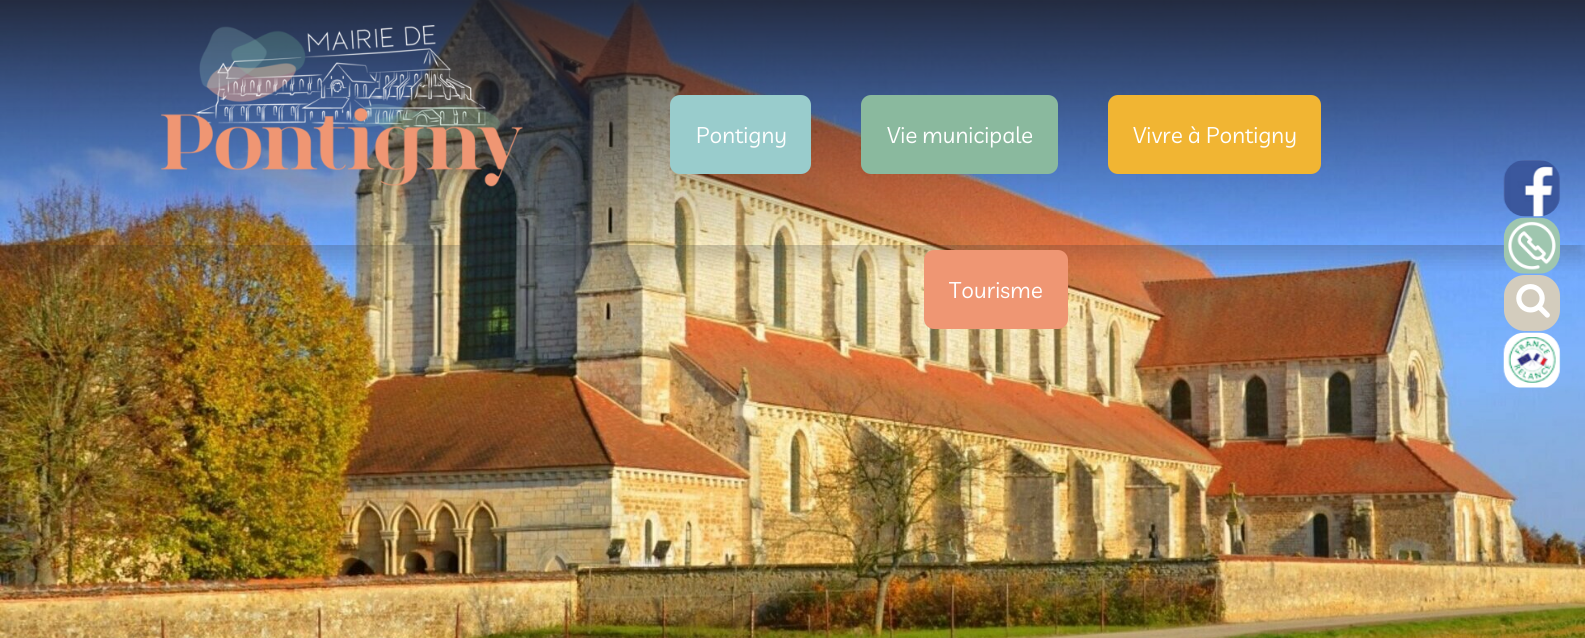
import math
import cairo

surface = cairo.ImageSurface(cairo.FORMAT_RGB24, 1585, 638)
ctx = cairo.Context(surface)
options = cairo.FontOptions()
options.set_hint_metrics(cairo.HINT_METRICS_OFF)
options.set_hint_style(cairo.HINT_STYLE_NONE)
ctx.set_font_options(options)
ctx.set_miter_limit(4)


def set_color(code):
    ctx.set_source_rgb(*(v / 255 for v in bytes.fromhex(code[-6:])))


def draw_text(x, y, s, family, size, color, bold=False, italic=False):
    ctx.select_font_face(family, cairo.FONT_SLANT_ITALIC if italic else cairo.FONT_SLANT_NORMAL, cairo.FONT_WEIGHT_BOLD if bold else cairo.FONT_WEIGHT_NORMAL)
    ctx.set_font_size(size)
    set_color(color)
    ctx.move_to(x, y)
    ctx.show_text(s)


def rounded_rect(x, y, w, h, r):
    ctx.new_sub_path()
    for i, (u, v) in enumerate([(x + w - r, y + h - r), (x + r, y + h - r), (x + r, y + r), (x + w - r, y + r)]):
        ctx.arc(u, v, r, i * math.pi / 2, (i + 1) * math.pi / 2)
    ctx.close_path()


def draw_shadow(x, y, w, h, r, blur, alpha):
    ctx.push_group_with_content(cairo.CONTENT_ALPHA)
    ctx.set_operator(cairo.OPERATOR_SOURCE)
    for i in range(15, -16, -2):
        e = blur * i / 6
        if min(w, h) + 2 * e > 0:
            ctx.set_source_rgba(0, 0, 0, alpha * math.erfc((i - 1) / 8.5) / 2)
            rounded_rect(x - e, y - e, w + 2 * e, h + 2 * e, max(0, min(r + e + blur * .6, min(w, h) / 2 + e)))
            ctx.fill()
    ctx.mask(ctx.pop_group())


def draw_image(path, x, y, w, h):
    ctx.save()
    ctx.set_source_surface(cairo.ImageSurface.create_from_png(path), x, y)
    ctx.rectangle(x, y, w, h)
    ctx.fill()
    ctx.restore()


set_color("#ffffff")
ctx.paint()
draw_image("assets/img1.png", 0, 0, 1585, 638)
ctx.save()
ctx.rectangle(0, 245, 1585, 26)
ctx.clip()
set_color("#323232")
draw_shadow(0, 13, 1585, 245, 0, 9.5, 0.25)
ctx.restore()
draw_image("assets/img2.png", 161, 25, 362, 162)
set_color("#99cccc")
rounded_rect(670, 95, 141, 79, 10)
ctx.fill()
draw_text(696, 143, "Pontigny", "Livvic", 22.5, "#ffffff")
set_color("#8ab99e")
rounded_rect(861, 95, 197, 79, 10)
ctx.fill()
draw_text(887, 143, "Vie municipale", "Livvic", 22.5, "#ffffff")
set_color("#f1b533")
rounded_rect(1108, 95, 213, 79, 10)
ctx.fill()
draw_text(1133, 143, "Vivre à Pontigny", "Livvic", 22.5, "#ffffff")
set_color("#ef9673")
rounded_rect(924, 250, 144, 79, 10)
ctx.fill()
draw_text(949, 298, "Tourisme", "Livvic", 22.5, "#ffffff")
draw_image("assets/img3.png", 1503, 160, 57, 57)
draw_image("assets/img4.png", 1503, 217, 57, 57)
set_color("#d3ccbd")
rounded_rect(1504, 275, 56, 56, 21)
ctx.fill()
draw_image("assets/img5.png", 1516, 284, 34, 34)
draw_image("assets/img6.png", 1503, 332, 58, 56)
surface.write_to_png("output.png")
